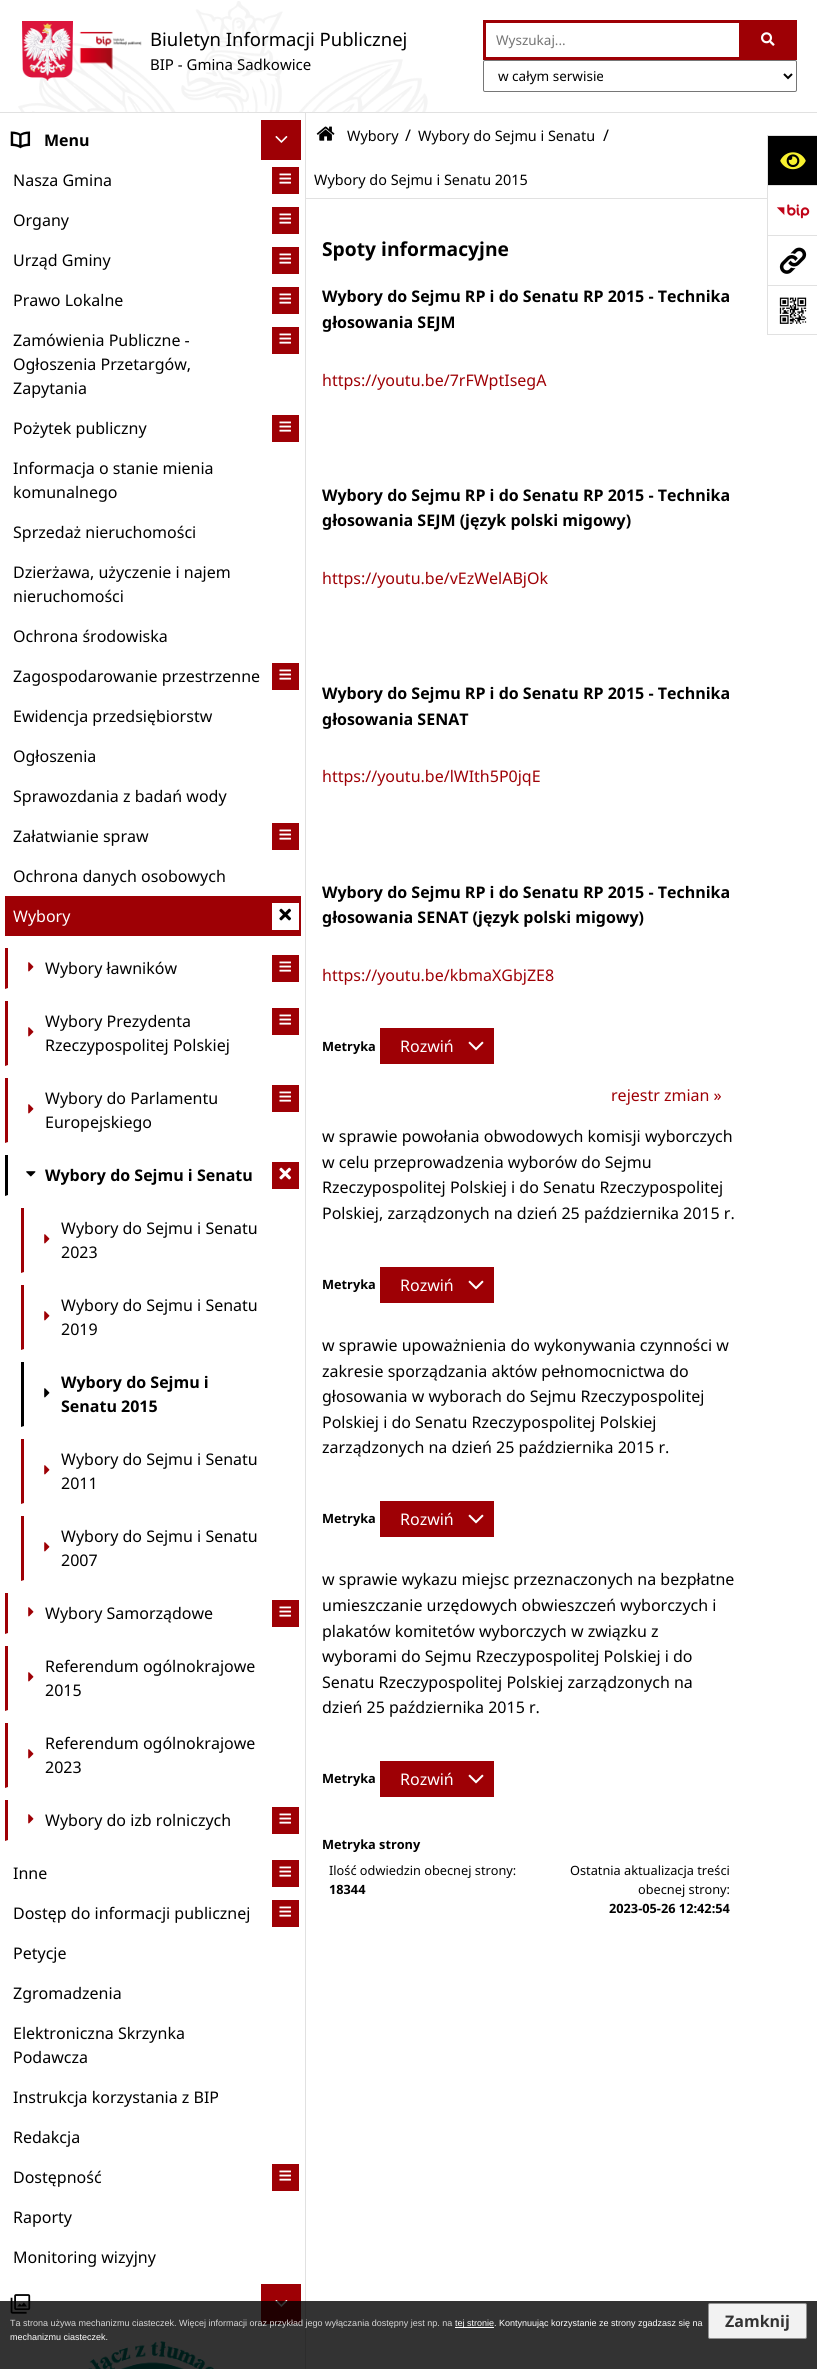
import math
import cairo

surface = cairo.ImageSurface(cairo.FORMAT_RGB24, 817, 2369)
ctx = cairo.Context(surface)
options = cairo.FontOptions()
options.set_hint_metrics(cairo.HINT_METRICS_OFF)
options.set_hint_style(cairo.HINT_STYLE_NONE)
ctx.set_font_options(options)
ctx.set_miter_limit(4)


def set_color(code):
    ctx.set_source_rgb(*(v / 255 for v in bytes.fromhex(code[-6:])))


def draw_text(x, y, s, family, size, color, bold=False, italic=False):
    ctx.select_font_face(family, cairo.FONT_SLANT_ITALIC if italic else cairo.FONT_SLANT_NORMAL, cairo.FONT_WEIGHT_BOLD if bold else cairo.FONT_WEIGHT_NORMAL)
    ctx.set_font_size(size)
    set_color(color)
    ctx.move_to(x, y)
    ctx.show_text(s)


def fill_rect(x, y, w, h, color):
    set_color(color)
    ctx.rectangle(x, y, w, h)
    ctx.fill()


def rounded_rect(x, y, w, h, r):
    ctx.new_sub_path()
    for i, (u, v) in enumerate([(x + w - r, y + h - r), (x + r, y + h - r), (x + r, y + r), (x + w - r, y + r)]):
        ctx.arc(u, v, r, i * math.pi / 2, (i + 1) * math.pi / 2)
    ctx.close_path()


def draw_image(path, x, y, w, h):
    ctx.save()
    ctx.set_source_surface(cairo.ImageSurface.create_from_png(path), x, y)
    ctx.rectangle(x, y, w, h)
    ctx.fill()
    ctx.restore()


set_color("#ffffff")
ctx.paint()
fill_rect(0, 112, 817, 1, "#e1e1e1")
draw_image("assets/img1.png", 18, 1, 410, 111)
draw_image("assets/img2.png", 22, 21, 51, 60)
draw_image("assets/img3.png", 79, 31, 63, 39)
draw_text(150, 46, "Biuletyn Informacji Publicznej", "Noto Sans", 18.5, "#000000")
draw_text(150, 70, "BIP - Gmina Sadkowice", "Noto Sans", 15, "#000000")
ctx.rectangle(484.5, 21.5, 256, 37)
set_color("#9e0005")
ctx.set_line_width(3)
ctx.stroke()
draw_text(496, 45, "Wyszukaj...", "Noto Sans", 13.5, "#757575")
fill_rect(742, 20, 55, 40, "#9e0005")
draw_image("assets/img4.png", 761, 32, 14, 14)
rounded_rect(483.5, 60.5, 313, 31, 1.5)
set_color("#767676")
ctx.set_line_width(1)
ctx.stroke()
ctx.new_path()
ctx.move_to(784, 74)
ctx.line_to(788, 78)
ctx.line_to(792, 74)
set_color("#000000")
ctx.set_line_width(2)
ctx.stroke()
draw_text(498, 81, "w całym serwisie", "Noto Sans", 13.5, "#000000")
draw_image("assets/img5.png", 10, 131, 21, 18)
draw_text(44, 146, "Menu", "Noto Sans", 16, "#000000", bold=True)
fill_rect(261, 120, 40, 40, "#9e0005")
draw_image("assets/img6.png", 275, 136, 13, 7)
draw_text(13, 186, "Nasza Gmina", "Noto Sans", 16, "#000000")
fill_rect(272, 167, 27, 27, "#9e0005")
draw_image("assets/img7.png", 279, 173, 12, 11)
draw_text(13, 226, "Organy", "Noto Sans", 16, "#000000")
fill_rect(272, 207, 27, 27, "#9e0005")
draw_image("assets/img7.png", 279, 213, 12, 11)
draw_text(13, 266, "Urząd Gminy", "Noto Sans", 16, "#000000")
fill_rect(272, 247, 27, 27, "#9e0005")
draw_image("assets/img7.png", 279, 253, 12, 11)
draw_text(13, 306, "Prawo Lokalne", "Noto Sans", 16, "#000000")
fill_rect(272, 287, 27, 27, "#9e0005")
draw_image("assets/img7.png", 279, 293, 12, 11)
draw_text(13, 346, "Zamówienia Publiczne -", "Noto Sans", 16, "#000000")
draw_text(13, 370, "Ogłoszenia Przetargów,", "Noto Sans", 16, "#000000")
draw_text(13, 394, "Zapytania", "Noto Sans", 16, "#000000")
fill_rect(272, 327, 27, 27, "#9e0005")
draw_image("assets/img7.png", 279, 333, 12, 11)
draw_text(13, 434, "Pożytek publiczny", "Noto Sans", 16, "#000000")
fill_rect(272, 415, 27, 27, "#9e0005")
draw_image("assets/img7.png", 279, 421, 12, 11)
draw_text(13, 474, "Informacja o stanie mienia", "Noto Sans", 16, "#000000")
draw_text(13, 498, "komunalnego", "Noto Sans", 16, "#000000")
draw_text(13, 538, "Sprzedaż nieruchomości", "Noto Sans", 16, "#000000")
draw_text(13, 578, "Dzierżawa, użyczenie i najem", "Noto Sans", 16, "#000000")
draw_text(13, 602, "nieruchomości", "Noto Sans", 16, "#000000")
draw_text(13, 642, "Ochrona środowiska", "Noto Sans", 16, "#000000")
draw_text(13, 682, "Zagospodarowanie przestrzenne", "Noto Sans", 16, "#000000")
fill_rect(272, 663, 27, 27, "#9e0005")
draw_image("assets/img7.png", 279, 669, 12, 11)
draw_text(13, 722, "Ewidencja przedsiębiorstw", "Noto Sans", 16, "#000000")
draw_text(13, 762, "Ogłoszenia", "Noto Sans", 16, "#000000")
draw_text(13, 802, "Sprawozdania z badań wody", "Noto Sans", 16, "#000000")
draw_text(13, 842, "Załatwianie spraw", "Noto Sans", 16, "#000000")
fill_rect(272, 823, 27, 27, "#9e0005")
draw_image("assets/img7.png", 279, 829, 12, 11)
draw_text(13, 882, "Ochrona danych osobowych", "Noto Sans", 16, "#000000")
fill_rect(5, 896, 296, 40, "#9e0005")
draw_text(13, 922, "Wybory", "Noto Sans", 16, "#ffffff")
fill_rect(272, 903, 27, 27, "#ffffff")
draw_image("assets/img8.png", 279, 908, 12, 13)
set_color("#9e0005")
ctx.new_path()
ctx.move_to(5, 989)
ctx.line_to(5, 948)
ctx.line_to(8, 948)
ctx.line_to(8, 988)
ctx.close_path()
ctx.fill()
draw_image("assets/img9.png", 28, 962, 6, 10)
draw_text(45, 974, "Wybory ławników", "Noto Sans", 16, "#000000")
fill_rect(272, 955, 27, 27, "#9e0005")
draw_image("assets/img7.png", 279, 961, 12, 11)
ctx.new_path()
ctx.move_to(5, 1066)
ctx.line_to(5, 1001)
ctx.line_to(8, 1001)
ctx.line_to(8, 1065)
ctx.close_path()
ctx.fill()
draw_image("assets/img9.png", 28, 1027, 6, 10)
draw_text(45, 1027, "Wybory Prezydenta", "Noto Sans", 16, "#000000")
draw_text(45, 1051, "Rzeczypospolitej Polskiej", "Noto Sans", 16, "#000000")
fill_rect(272, 1008, 27, 27, "#9e0005")
draw_image("assets/img7.png", 279, 1014, 12, 11)
ctx.new_path()
ctx.move_to(5, 1143)
ctx.line_to(5, 1078)
ctx.line_to(8, 1078)
ctx.line_to(8, 1142)
ctx.close_path()
ctx.fill()
draw_image("assets/img9.png", 28, 1104, 6, 10)
draw_text(45, 1104, "Wybory do Parlamentu", "Noto Sans", 16, "#000000")
draw_text(45, 1128, "Europejskiego", "Noto Sans", 16, "#000000")
fill_rect(272, 1085, 27, 27, "#9e0005")
draw_image("assets/img7.png", 279, 1091, 12, 11)
set_color("#000000")
ctx.new_path()
ctx.move_to(5, 1196)
ctx.line_to(5, 1155)
ctx.line_to(8, 1155)
ctx.line_to(8, 1195)
ctx.close_path()
ctx.fill()
draw_image("assets/img10.png", 26, 1171, 10, 6)
draw_text(45, 1181, "Wybory do Sejmu i Senatu", "Noto Sans", 16, "#000000", bold=True)
fill_rect(272, 1162, 27, 27, "#9e0005")
draw_image("assets/img11.png", 279, 1167, 12, 13)
ctx.new_path()
ctx.move_to(21, 1273)
ctx.line_to(21, 1208)
ctx.line_to(24, 1208)
ctx.line_to(24, 1272)
ctx.close_path()
ctx.fill()
draw_image("assets/img9.png", 44, 1234, 6, 10)
draw_text(61, 1234, "Wybory do Sejmu i Senatu", "Noto Sans", 16, "#000000")
draw_text(61, 1258, "2023", "Noto Sans", 16, "#000000")
set_color("#9e0005")
ctx.new_path()
ctx.move_to(21, 1350)
ctx.line_to(21, 1285)
ctx.line_to(24, 1285)
ctx.line_to(24, 1349)
ctx.close_path()
ctx.fill()
draw_image("assets/img9.png", 44, 1311, 6, 10)
draw_text(61, 1311, "Wybory do Sejmu i Senatu", "Noto Sans", 16, "#000000")
draw_text(61, 1335, "2019", "Noto Sans", 16, "#000000")
ctx.new_path()
ctx.move_to(21, 1427)
ctx.line_to(21, 1362)
ctx.line_to(24, 1362)
ctx.line_to(24, 1426)
ctx.close_path()
ctx.fill()
draw_image("assets/img12.png", 44, 1388, 6, 10)
draw_text(61, 1388, "Wybory do Sejmu i", "Noto Sans", 16, "#000000", bold=True)
draw_text(61, 1412, "Senatu 2015", "Noto Sans", 16, "#000000", bold=True)
set_color("#9e0005")
ctx.new_path()
ctx.move_to(21, 1504)
ctx.line_to(21, 1439)
ctx.line_to(24, 1439)
ctx.line_to(24, 1503)
ctx.close_path()
ctx.fill()
draw_image("assets/img9.png", 44, 1465, 6, 10)
draw_text(61, 1465, "Wybory do Sejmu i Senatu", "Noto Sans", 16, "#000000")
draw_text(61, 1489, "2011", "Noto Sans", 16, "#000000")
set_color("#9e0005")
ctx.new_path()
ctx.move_to(21, 1581)
ctx.line_to(21, 1516)
ctx.line_to(24, 1516)
ctx.line_to(24, 1580)
ctx.close_path()
ctx.fill()
draw_image("assets/img9.png", 44, 1542, 6, 10)
draw_text(61, 1542, "Wybory do Sejmu i Senatu", "Noto Sans", 16, "#000000")
draw_text(61, 1566, "2007", "Noto Sans", 16, "#000000")
set_color("#9e0005")
ctx.new_path()
ctx.move_to(5, 1634)
ctx.line_to(5, 1593)
ctx.line_to(8, 1593)
ctx.line_to(8, 1633)
ctx.close_path()
ctx.fill()
draw_image("assets/img9.png", 28, 1607, 6, 10)
draw_text(45, 1619, "Wybory Samorządowe", "Noto Sans", 16, "#000000")
fill_rect(272, 1600, 27, 27, "#9e0005")
draw_image("assets/img7.png", 279, 1606, 12, 11)
ctx.new_path()
ctx.move_to(5, 1711)
ctx.line_to(5, 1646)
ctx.line_to(8, 1646)
ctx.line_to(8, 1710)
ctx.close_path()
ctx.fill()
draw_image("assets/img9.png", 28, 1672, 6, 10)
draw_text(45, 1672, "Referendum ogólnokrajowe", "Noto Sans", 16, "#000000")
draw_text(45, 1696, "2015", "Noto Sans", 16, "#000000")
set_color("#9e0005")
ctx.new_path()
ctx.move_to(5, 1788)
ctx.line_to(5, 1723)
ctx.line_to(8, 1723)
ctx.line_to(8, 1787)
ctx.close_path()
ctx.fill()
draw_image("assets/img9.png", 28, 1749, 6, 10)
draw_text(45, 1749, "Referendum ogólnokrajowe", "Noto Sans", 16, "#000000")
draw_text(45, 1773, "2023", "Noto Sans", 16, "#000000")
set_color("#9e0005")
ctx.new_path()
ctx.move_to(5, 1841)
ctx.line_to(5, 1800)
ctx.line_to(8, 1800)
ctx.line_to(8, 1840)
ctx.close_path()
ctx.fill()
draw_image("assets/img9.png", 28, 1814, 6, 10)
draw_text(45, 1826, "Wybory do izb rolniczych", "Noto Sans", 16, "#000000")
fill_rect(272, 1807, 27, 27, "#9e0005")
draw_image("assets/img7.png", 279, 1813, 12, 11)
draw_text(13, 1879, "Inne", "Noto Sans", 16, "#000000")
fill_rect(272, 1860, 27, 27, "#9e0005")
draw_image("assets/img7.png", 279, 1866, 12, 11)
draw_text(13, 1919, "Dostęp do informacji publicznej", "Noto Sans", 16, "#000000")
fill_rect(272, 1900, 27, 27, "#9e0005")
draw_image("assets/img7.png", 279, 1906, 12, 11)
draw_text(13, 1959, "Petycje", "Noto Sans", 16, "#000000")
draw_text(13, 1999, "Zgromadzenia", "Noto Sans", 16, "#000000")
draw_text(13, 2039, "Elektroniczna Skrzynka", "Noto Sans", 16, "#000000")
draw_text(13, 2063, "Podawcza", "Noto Sans", 16, "#000000")
draw_text(13, 2103, "Instrukcja korzystania z BIP", "Noto Sans", 16, "#000000")
draw_text(13, 2143, "Redakcja", "Noto Sans", 16, "#000000")
draw_text(13, 2183, "Dostępność", "Noto Sans", 16, "#000000")
fill_rect(272, 2164, 27, 27, "#9e0005")
draw_image("assets/img7.png", 279, 2170, 12, 11)
draw_text(13, 2223, "Raporty", "Noto Sans", 16, "#000000")
draw_text(13, 2263, "Monitoring wizyjny", "Noto Sans", 16, "#000000")
fill_rect(305, 113, 1, 2256, "#e1e1e1")
fill_rect(768, 136, 49, 49, "#000000")
fill_rect(767, 135, 50, 1, "#e1e1e1")
fill_rect(767, 135, 1, 50, "#e1e1e1")
draw_image("assets/img13.png", 780, 152, 26, 18)
fill_rect(767, 185, 50, 1, "#e1e1e1")
fill_rect(767, 185, 1, 50, "#e1e1e1")
draw_image("assets/img14.png", 776, 204, 34, 15)
fill_rect(767, 235, 50, 1, "#e1e1e1")
fill_rect(767, 235, 1, 50, "#e1e1e1")
draw_image("assets/img15.png", 779, 247, 28, 27)
fill_rect(767, 285, 50, 1, "#e1e1e1")
fill_rect(767, 334, 50, 1, "#e1e1e1")
fill_rect(767, 285, 1, 50, "#e1e1e1")
draw_image("assets/img16.png", 779, 297, 28, 27)
draw_image("assets/img17.png", 10, 2294, 21, 20)
fill_rect(261, 2284, 40, 40, "#9e0005")
draw_image("assets/img6.png", 275, 2300, 13, 7)
draw_image("assets/img18.png", 88, 2341, 126, 28)
fill_rect(306, 198, 461, 1, "#e1e1e1")
draw_image("assets/img19.png", 316, 126, 19, 15)
draw_text(347, 141, "Wybory", "Noto Sans", 14.4, "#000000")
draw_text(405, 141, "/", "Noto Sans", 16, "#000000")
draw_text(418, 141, "Wybory do Sejmu i Senatu", "Noto Sans", 14.4, "#000000")
draw_text(603, 141, "/", "Noto Sans", 16, "#000000")
draw_text(314, 185, "Wybory do Sejmu i Senatu 2015", "Noto Sans", 14.4, "#000000")
draw_text(322, 256, "Spoty informacyjne", "Noto Sans", 19.25, "#000000", bold=True)
draw_text(322, 302, "Wybory do Sejmu RP i do Senatu RP 2015 - Technika", "Noto Sans", 16, "#000000", bold=True)
draw_text(322, 328, "głosowania SEJM", "Noto Sans", 16, "#000000", bold=True)
draw_text(322, 386, "https://youtu.be/7rFWptIsegA", "Noto Sans", 16, "#9e0005")
draw_text(322, 501, "Wybory do Sejmu RP i do Senatu RP 2015 - Technika", "Noto Sans", 16, "#000000", bold=True)
draw_text(322, 526, "głosowania SEJM (język polski migowy)", "Noto Sans", 16, "#000000", bold=True)
draw_text(322, 584, "https://youtu.be/vEzWelABjOk", "Noto Sans", 16, "#9e0005")
draw_text(322, 699, "Wybory do Sejmu RP i do Senatu RP 2015 - Technika", "Noto Sans", 16, "#000000", bold=True)
draw_text(322, 725, "głosowania SENAT", "Noto Sans", 16, "#000000", bold=True)
draw_text(322, 782, "https://youtu.be/lWIth5P0jqE", "Noto Sans", 16, "#9e0005")
draw_text(322, 898, "Wybory do Sejmu RP i do Senatu RP 2015 - Technika", "Noto Sans", 16, "#000000", bold=True)
draw_text(322, 923, "głosowania SENAT (język polski migowy)", "Noto Sans", 16, "#000000", bold=True)
draw_text(322, 981, "https://youtu.be/kbmaXGbjZE8", "Noto Sans", 16, "#9e0005")
draw_text(322, 1051, "Metryka", "Noto Sans", 12.75, "#000000", bold=True)
fill_rect(380, 1028, 114, 36, "#9e0005")
draw_text(400, 1052, "Rozwiń", "Noto Sans", 16, "#ffffff")
draw_image("assets/img20.png", 468, 1041, 16, 10)
draw_text(611, 1101, "rejestr zmian »", "Noto Sans", 16, "#9e0005")
draw_text(322, 1142, "w sprawie powołania obwodowych komisji wyborczych", "Noto Sans", 16, "#000000")
draw_text(322, 1168, "w celu przeprowadzenia wyborów do Sejmu", "Noto Sans", 16, "#000000")
draw_text(322, 1193, "Rzeczypospolitej Polskiej i do Senatu Rzeczypospolitej", "Noto Sans", 16, "#000000")
draw_text(322, 1219, "Polskiej, zarządzonych na dzień 25 października 2015 r.", "Noto Sans", 16, "#000000")
draw_text(322, 1289, "Metryka", "Noto Sans", 12.75, "#000000", bold=True)
fill_rect(380, 1267, 114, 36, "#9e0005")
draw_text(400, 1291, "Rozwiń", "Noto Sans", 16, "#ffffff")
draw_image("assets/img20.png", 468, 1280, 16, 10)
draw_text(322, 1351, "w sprawie upoważnienia do wykonywania czynności w", "Noto Sans", 16, "#000000")
draw_text(322, 1377, "zakresie sporządzania aktów pełnomocnictwa do", "Noto Sans", 16, "#000000")
draw_text(322, 1402, "głosowania w wyborach do Sejmu Rzeczypospolitej", "Noto Sans", 16, "#000000")
draw_text(322, 1428, "Polskiej i do Senatu Rzeczypospolitej Polskiej", "Noto Sans", 16, "#000000")
draw_text(322, 1453, "zarządzonych na dzień 25 października 2015 r.", "Noto Sans", 16, "#000000")
draw_text(322, 1523, "Metryka", "Noto Sans", 12.75, "#000000", bold=True)
fill_rect(380, 1501, 114, 36, "#9e0005")
draw_text(400, 1525, "Rozwiń", "Noto Sans", 16, "#ffffff")
draw_image("assets/img20.png", 468, 1514, 16, 10)
draw_text(322, 1585, "w sprawie wykazu miejsc przeznaczonych na bezpłatne", "Noto Sans", 16, "#000000")
draw_text(322, 1611, "umieszczanie urzędowych obwieszczeń wyborczych i", "Noto Sans", 16, "#000000")
draw_text(322, 1637, "plakatów komitetów wyborczych w związku z", "Noto Sans", 16, "#000000")
draw_text(322, 1662, "wyborami do Sejmu Rzeczypospolitej Polskiej i do", "Noto Sans", 16, "#000000")
draw_text(322, 1688, "Senatu Rzeczypospolitej Polskiej zarządzonych na", "Noto Sans", 16, "#000000")
draw_text(322, 1713, "dzień 25 października 2015 r.", "Noto Sans", 16, "#000000")
draw_text(322, 1783, "Metryka", "Noto Sans", 12.75, "#000000", bold=True)
fill_rect(380, 1761, 114, 36, "#9e0005")
draw_text(400, 1785, "Rozwiń", "Noto Sans", 16, "#ffffff")
draw_image("assets/img20.png", 468, 1774, 16, 10)
draw_text(322, 1849, "Metryka strony", "Noto Sans", 12.75, "#000000", bold=True)
draw_text(329, 1875, "Ilość odwiedzin obecnej strony:", "Noto Sans", 12.75, "#000000")
draw_text(329, 1894, "18344", "Noto Sans", 12.75, "#000000", bold=True)
draw_text(570, 1875, "Ostatnia aktualizacja treści", "Noto Sans", 12.75, "#000000")
draw_text(638, 1894, "obecnej strony:", "Noto Sans", 12.75, "#000000")
draw_text(609, 1913, "2023-05-26 12:42:54", "Noto Sans", 12.75, "#000000", bold=True)
ctx.set_source_rgba(0, 0, 0, 0.8)
ctx.rectangle(0, 2301, 817, 68)
ctx.fill()
draw_text(10, 2326, "Ta strona używa mechanizmu ciasteczek. Więcej informacji oraz przykład jego wyłączania dostępny jest np. na", "Liberation Sans", 9, "#d6d6d6")
fill_rect(455, 2327, 39, 1, "#ffffff")
draw_text(455, 2326, "tej stronie. Kontynuując korzystanie ze strony zgadzasz się na", "Liberation Sans", 9, "#ffffff")
draw_text(10, 2340, "mechanizmu ciasteczek.", "Liberation Sans", 9, "#ffffff")
set_color("#f2f2f2")
rounded_rect(708.5, 2303.5, 98, 35, 1.5)
ctx.fill_preserve()
set_color("#919191")
ctx.set_line_width(1)
ctx.stroke()
draw_text(725, 2327, "Zamknij", "Noto Sans", 16, "#333333", bold=True)
surface.write_to_png("output.png")
